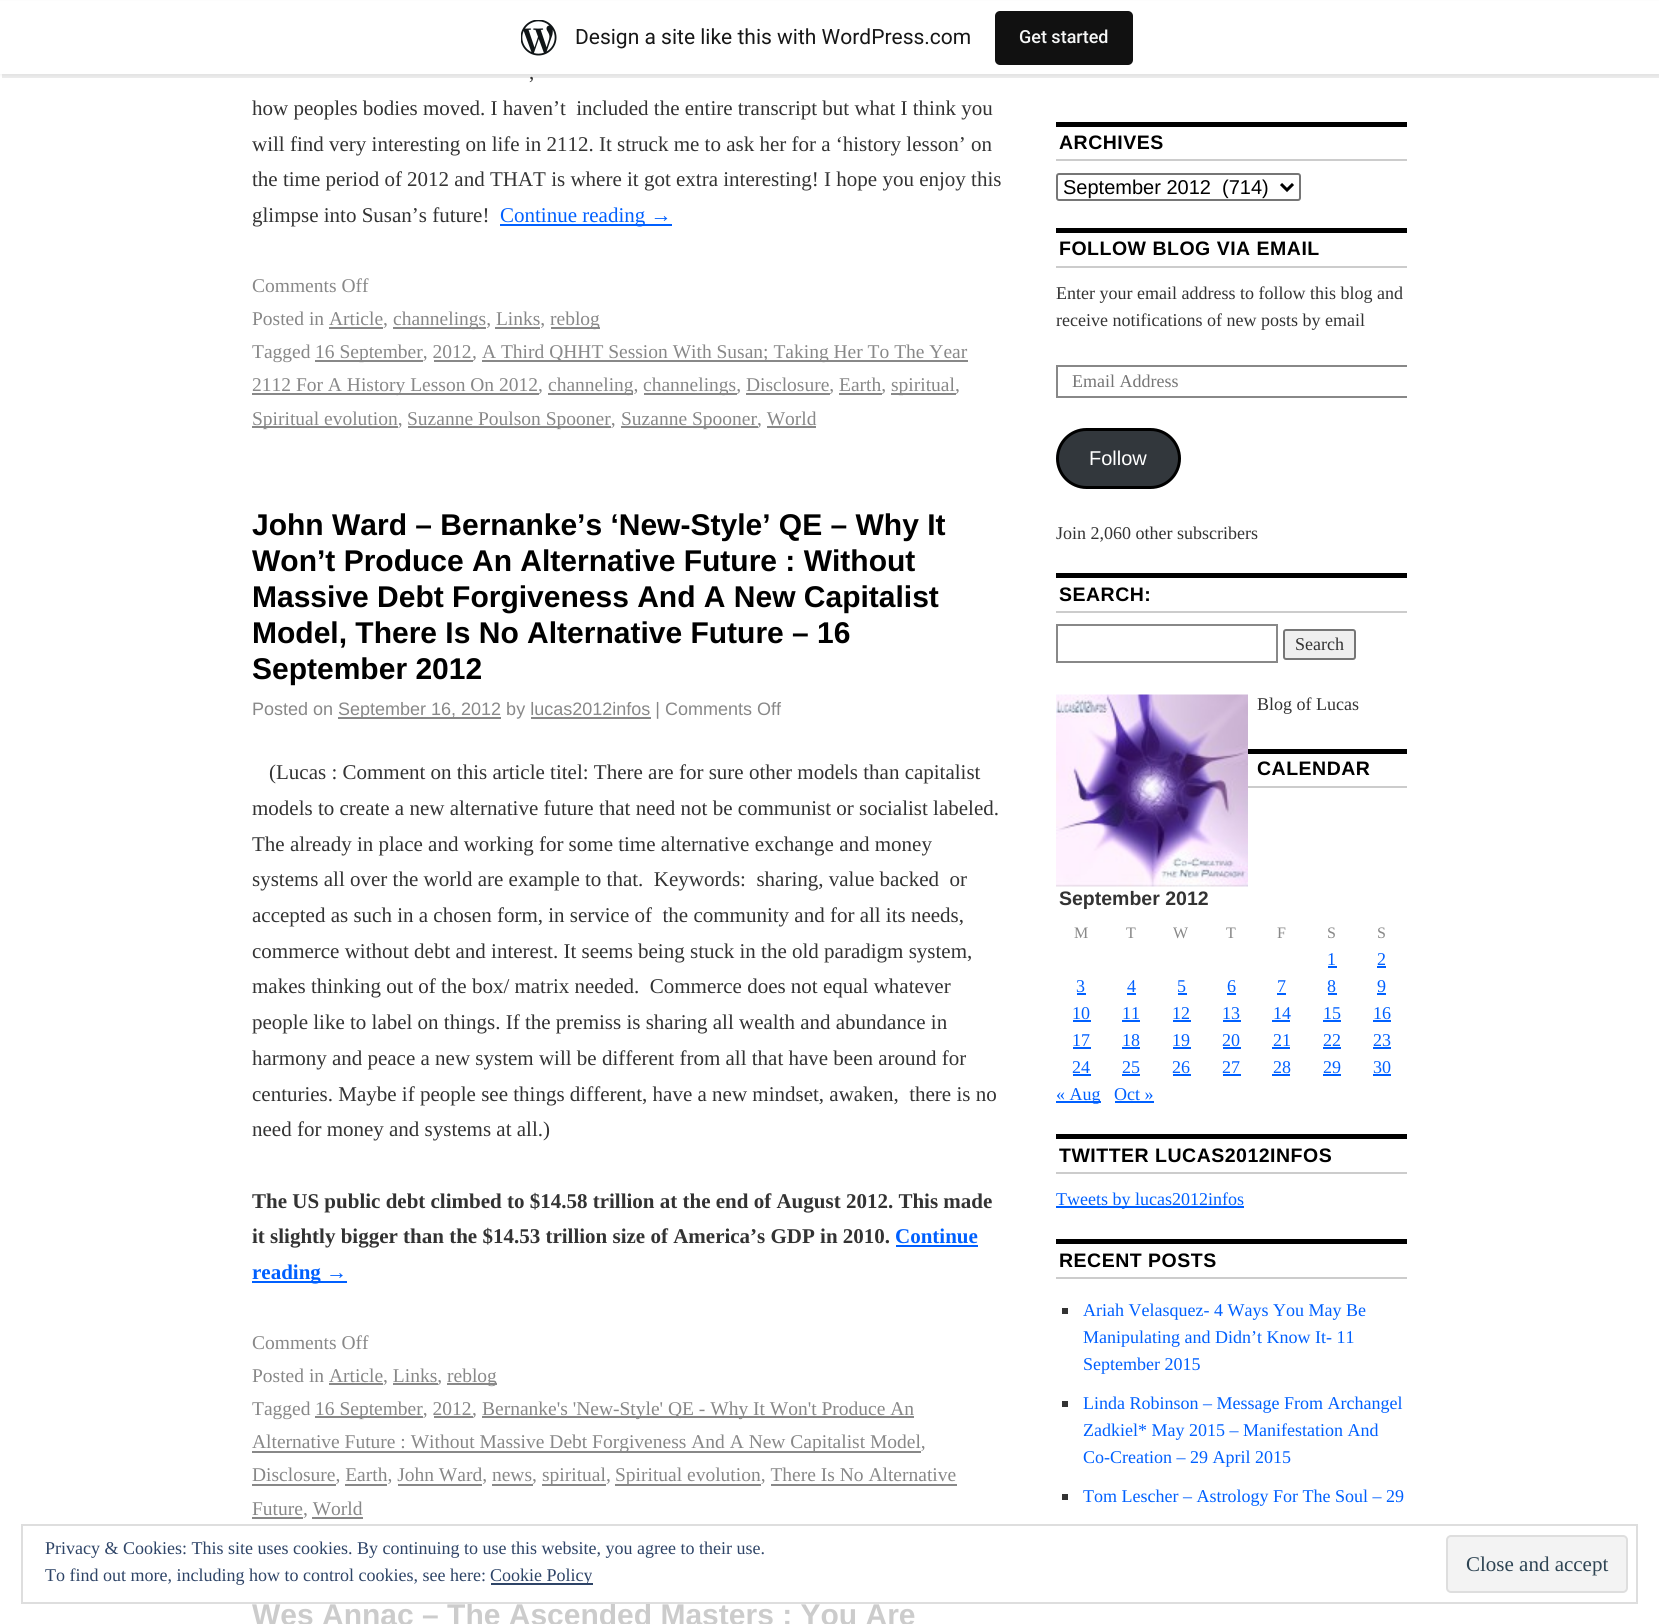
import math
import cairo

surface = cairo.ImageSurface(cairo.FORMAT_RGB24, 1659, 1624)
ctx = cairo.Context(surface)
options = cairo.FontOptions()
options.set_hint_metrics(cairo.HINT_METRICS_OFF)
options.set_hint_style(cairo.HINT_STYLE_NONE)
ctx.set_font_options(options)
ctx.set_miter_limit(4)


def set_color(code):
    ctx.set_source_rgb(*(v / 255 for v in bytes.fromhex(code[-6:])))


def draw_text(x, y, s, family, size, color, bold=False, italic=False):
    ctx.select_font_face(family, cairo.FONT_SLANT_ITALIC if italic else cairo.FONT_SLANT_NORMAL, cairo.FONT_WEIGHT_BOLD if bold else cairo.FONT_WEIGHT_NORMAL)
    ctx.set_font_size(size)
    set_color(color)
    ctx.move_to(x, y)
    ctx.show_text(s)


def draw_spaced(x, y, s, letter, word):
    ctx.move_to(x, y)
    for ch in s:
        ctx.show_text(ch)
        ctx.rel_move_to(letter + word * (ch == ' '), 0)


def fill_rect(x, y, w, h, color):
    set_color(color)
    ctx.rectangle(x, y, w, h)
    ctx.fill()


def rounded_rect(x, y, w, h, r):
    ctx.new_sub_path()
    for i, (u, v) in enumerate([(x + w - r, y + h - r), (x + r, y + h - r), (x + r, y + r), (x + w - r, y + r)]):
        ctx.arc(u, v, r, i * math.pi / 2, (i + 1) * math.pi / 2)
    ctx.close_path()


def draw_shadow(x, y, w, h, r, blur, alpha):
    ctx.push_group_with_content(cairo.CONTENT_ALPHA)
    ctx.set_operator(cairo.OPERATOR_SOURCE)
    for i in range(15, -16, -2):
        e = blur * i / 6
        if min(w, h) + 2 * e > 0:
            ctx.set_source_rgba(0, 0, 0, alpha * math.erfc((i - 1) / 8.5) / 2)
            rounded_rect(x - e, y - e, w + 2 * e, h + 2 * e, max(0, min(r + e + blur * .6, min(w, h) / 2 + e)))
            ctx.fill()
    ctx.mask(ctx.pop_group())


def draw_image(path, x, y, w, h):
    ctx.save()
    ctx.set_source_surface(cairo.ImageSurface.create_from_png(path), x, y)
    ctx.rectangle(x, y, w, h)
    ctx.fill()
    ctx.restore()


set_color("#ffffff")
ctx.paint()
set_color("#000000")
draw_shadow(0, 2, 1659, 73, 0, 1.5, 0.05)
ctx.set_source_rgba(0, 0, 0, 0.08)
ctx.new_path()
ctx.move_to(2, 74)
ctx.line_to(2, 78)
ctx.line_to(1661, 78)
ctx.line_to(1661, 5)
ctx.line_to(1659, 5)
ctx.line_to(1659, 74)
ctx.close_path()
ctx.fill()
fill_rect(0, 1, 1659, 73, "#ffffff")
draw_image("assets/img1.png", 521, 20, 36, 36)
draw_text(575, 44, "Design a site like this with WordPress.com", "Roboto", 21, "#171717")
set_color("#111111")
rounded_rect(995, 11, 138, 54, 5)
ctx.fill()
draw_text(1019, 43, "Get started", "Roboto Medium", 18, "#f6f7f7")
draw_text(529, 79, ",", "Liberation Serif", 21, "#333333")
draw_text(252, 115, "how peoples bodies moved. I haven’t  included the entire transcript but what I think you", "Liberation Serif", 21, "#333333")
draw_text(252, 151, "will find very interesting on life in 2112. It struck me to ask her for a ‘history lesson’ on", "Liberation Serif", 21, "#333333")
draw_text(252, 186, "the time period of 2012 and THAT is where it got extra interesting! I hope you enjoy this", "Liberation Serif", 21, "#333333")
draw_text(252, 222, "glimpse into Susan’s future!", "Liberation Serif", 21, "#333333")
fill_rect(500, 224, 172, 2, "#0060ff")
draw_text(500, 222, "Continue reading →", "Liberation Serif", 21, "#0060ff")
draw_text(252, 292, "Comments Off", "Liberation Serif", 19.5, "#888888")
draw_text(252, 325, "Posted in Article,", "Liberation Serif", 19.5, "#888888")
fill_rect(393, 327, 93, 2, "#888888")
draw_text(393, 325, "channelings, Links,", "Liberation Serif", 19.5, "#888888")
fill_rect(551, 327, 49, 2, "#888888")
draw_text(550, 325, "reblog", "Liberation Serif", 19.5, "#888888")
fill_rect(329, 327, 54, 2, "#888888")
fill_rect(495, 327, 45, 2, "#888888")
draw_text(252, 358, "Tagged", "Liberation Serif", 19.5, "#888888")
fill_rect(315, 360, 108, 2, "#888888")
draw_text(315, 358, "16 September, 2012", "Liberation Serif", 19.5, "#888888")
fill_rect(434, 360, 39, 2, "#888888")
draw_text(472, 358, ",", "Liberation Serif", 19.5, "#888888")
fill_rect(482, 360, 486, 2, "#888888")
draw_text(482, 358, "A Third QHHT Session With Susan; Taking Her To The Year", "Liberation Serif", 19.5, "#888888")
fill_rect(252, 393, 287, 2, "#888888")
draw_text(252, 391, "2112 For A History Lesson On 2012,", "Liberation Serif", 19.5, "#888888")
fill_rect(548, 393, 85, 2, "#888888")
draw_text(548, 391, "channeling,", "Liberation Serif", 19.5, "#888888")
fill_rect(644, 393, 93, 2, "#888888")
draw_text(643, 391, "channelings, Disclosure, Earth,", "Liberation Serif", 19.5, "#888888")
fill_rect(891, 393, 65, 2, "#888888")
draw_text(891, 391, "spiritual,", "Liberation Serif", 19.5, "#888888")
fill_rect(746, 393, 84, 2, "#888888")
fill_rect(839, 393, 43, 2, "#888888")
fill_rect(252, 426, 146, 2, "#888888")
draw_text(252, 425, "Spiritual evolution,", "Liberation Serif", 19.5, "#888888")
fill_rect(408, 426, 203, 2, "#888888")
draw_text(407, 425, "Suzanne Poulson Spooner,", "Liberation Serif", 19.5, "#888888")
fill_rect(621, 426, 137, 2, "#888888")
draw_text(621, 425, "Suzanne Spooner, World", "Liberation Serif", 19.5, "#888888")
fill_rect(767, 426, 49, 2, "#888888")
draw_text(252, 535, "John Ward – Bernanke’s ‘New-Style’ QE – Why It", "Liberation Sans", 30, "#000000", bold=True)
draw_text(252, 571, "Won’t Produce An Alternative Future : Without", "Liberation Sans", 30, "#000000", bold=True)
draw_text(252, 607, "Massive Debt Forgiveness And A New Capitalist", "Liberation Sans", 30, "#000000", bold=True)
draw_text(252, 643, "Model, There Is No Alternative Future – 16", "Liberation Sans", 30, "#000000", bold=True)
draw_text(252, 679, "September 2012", "Liberation Sans", 30, "#000000", bold=True)
draw_text(252, 715, "Posted on", "Liberation Sans", 18, "#888888")
fill_rect(338, 717, 163, 2, "#888888")
draw_text(338, 715, "September 16, 2012 by lucas2012infos | Comments Off", "Liberation Sans", 18, "#888888")
fill_rect(531, 717, 120, 2, "#888888")
draw_text(269, 779, "(Lucas : Comment on this article titel: There are for sure other models than capitalist", "Liberation Serif", 21, "#333333")
draw_text(252, 815, "models to create a new alternative future that need not be communist or socialist labeled.", "Liberation Serif", 21, "#333333")
draw_text(252, 851, "The already in place and working for some time alternative exchange and money", "Liberation Serif", 21, "#333333")
draw_text(252, 886, "systems all over the world are example to that.  Keywords:  sharing, value backed  or", "Liberation Serif", 21, "#333333")
draw_text(252, 922, "accepted as such in a chosen form, in service of  the community and for all its needs,", "Liberation Serif", 21, "#333333")
draw_text(252, 958, "commerce without debt and interest. It seems being stuck in the old paradigm system,", "Liberation Serif", 21, "#333333")
draw_text(252, 993, "makes thinking out of the box/ matrix needed.  Commerce does not equal whatever", "Liberation Serif", 21, "#333333")
draw_text(252, 1029, "people like to label on things. If the premiss is sharing all wealth and abundance in", "Liberation Serif", 21, "#333333")
draw_text(252, 1065, "harmony and peace a new system will be different from all that have been around for", "Liberation Serif", 21, "#333333")
draw_text(252, 1101, "centuries. Maybe if people see things different, have a new mindset, awaken,  there is no", "Liberation Serif", 21, "#333333")
draw_text(252, 1136, "need for money and systems at all.)", "Liberation Serif", 21, "#333333")
draw_text(252, 1208, "The US public debt climbed to $14.58 trillion at the end of August 2012. This made", "Liberation Serif", 21, "#333333", bold=True)
draw_text(252, 1243, "it slightly bigger than the $14.53 trillion size of America’s GDP in 2010.", "Liberation Serif", 21, "#333333", bold=True)
draw_text(895, 1243, "Continue", "Liberation Serif", 21, "#0060ff", bold=True)
fill_rect(896, 1245, 82, 2, "#0060ff")
fill_rect(252, 1281, 95, 2, "#0060ff")
draw_text(252, 1279, "reading →", "Liberation Serif", 21, "#0060ff", bold=True)
draw_text(252, 1349, "Comments Off", "Liberation Serif", 19.5, "#888888")
draw_text(252, 1382, "Posted in Article, Links,", "Liberation Serif", 19.5, "#888888")
fill_rect(447, 1383, 50, 2, "#888888")
draw_text(447, 1382, "reblog", "Liberation Serif", 19.5, "#888888")
fill_rect(329, 1383, 54, 2, "#888888")
fill_rect(393, 1383, 45, 2, "#888888")
draw_text(252, 1415, "Tagged", "Liberation Serif", 19.5, "#888888")
fill_rect(315, 1416, 108, 2, "#888888")
draw_text(315, 1415, "16 September, 2012", "Liberation Serif", 19.5, "#888888")
fill_rect(434, 1416, 39, 2, "#888888")
draw_text(472, 1415, ",", "Liberation Serif", 19.5, "#888888")
fill_rect(482, 1416, 432, 2, "#888888")
draw_text(482, 1415, "Bernanke's 'New-Style' QE - Why It Won't Produce An", "Liberation Serif", 19.5, "#888888")
fill_rect(252, 1451, 669, 2, "#888888")
draw_text(252, 1448, "Alternative Future : Without Massive Debt Forgiveness And A New Capitalist Model,", "Liberation Serif", 19.5, "#888888")
draw_text(252, 1481, "Disclosure, Earth, John Ward, news,", "Liberation Serif", 19.5, "#888888")
fill_rect(252, 1484, 84, 2, "#888888")
fill_rect(542, 1484, 64, 2, "#888888")
draw_text(542, 1481, "spiritual,", "Liberation Serif", 19.5, "#888888")
fill_rect(615, 1484, 146, 2, "#888888")
draw_text(615, 1481, "Spiritual evolution, There Is No Alternative", "Liberation Serif", 19.5, "#888888")
fill_rect(345, 1484, 42, 2, "#888888")
fill_rect(398, 1484, 84, 2, "#888888")
fill_rect(492, 1484, 41, 2, "#888888")
fill_rect(252, 1517, 51, 2, "#888888")
draw_text(252, 1515, "Future, World", "Liberation Serif", 19.5, "#888888")
fill_rect(771, 1484, 186, 2, "#888888")
fill_rect(312, 1517, 51, 2, "#888888")
draw_text(252, 1625, "Wes Annac – The Ascended Masters : You Are", "Liberation Sans", 30, "#cccccc", bold=True)
fill_rect(1056, 122, 351, 5, "#000000")
fill_rect(1056, 159, 351, 2, "#cccccc")
ctx.set_font_size(19.5)
set_color("#000000")
draw_spaced(1059, 149, "ARCHIVES", 0.5, 0)
rounded_rect(1057, 174, 243, 26, 2)
set_color("#767676")
ctx.stroke()
ctx.new_path()
ctx.move_to(1281, 184)
ctx.line_to(1287, 190)
ctx.line_to(1293, 184)
set_color("#000000")
ctx.set_line_width(3)
ctx.stroke()
draw_text(1063, 194, "September 2012  (714)", "Liberation Sans", 20, "#000000")
fill_rect(1056, 228, 351, 5, "#000000")
fill_rect(1056, 266, 351, 2, "#cccccc")
ctx.select_font_face("Liberation Sans", cairo.FONT_SLANT_NORMAL, cairo.FONT_WEIGHT_BOLD)
ctx.set_font_size(19.5)
set_color("#000000")
draw_spaced(1059, 255, "FOLLOW BLOG VIA EMAIL", 0.5, 0)
draw_text(1056, 299, "Enter your email address to follow this blog and", "Liberation Serif", 18, "#333333")
draw_text(1056, 326, "receive notifications of new posts by email", "Liberation Serif", 18, "#333333")
ctx.save()
ctx.rectangle(1056, 0, 351, 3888)
ctx.clip()
ctx.rectangle(1057, 366, 364, 31)
set_color("#888888")
ctx.set_line_width(2)
ctx.stroke()
ctx.restore()
draw_text(1072, 387, "Email Address", "Liberation Serif", 18, "#757575")
set_color("#32373c")
rounded_rect(1057.5, 429.5, 122, 58, 29)
ctx.fill_preserve()
set_color("#000000")
ctx.stroke()
draw_text(1089, 465, "Follow", "Liberation Sans", 20, "#ffffff")
draw_text(1056, 539, "Join 2,060 other subscribers", "Liberation Serif", 18, "#333333")
fill_rect(1056, 573, 351, 5, "#000000")
fill_rect(1056, 611, 351, 2, "#cccccc")
ctx.select_font_face("Liberation Sans", cairo.FONT_SLANT_NORMAL, cairo.FONT_WEIGHT_BOLD)
ctx.set_font_size(19.5)
set_color("#000000")
draw_spaced(1059, 601, "SEARCH:", 0.5, 0)
ctx.rectangle(1057, 625, 220, 37)
set_color("#888888")
ctx.set_line_width(2)
ctx.stroke()
set_color("#efefef")
rounded_rect(1284, 630, 71, 29, 2)
ctx.fill_preserve()
set_color("#767676")
ctx.stroke()
draw_text(1295, 650, "Search", "Liberation Serif", 18, "#333333")
draw_image("assets/img2.png", 1056, 694, 192, 193)
draw_text(1257, 710, "Blog of Lucas", "Liberation Serif", 18, "#333333")
fill_rect(1248, 749, 159, 5, "#000000")
fill_rect(1248, 786, 159, 2, "#cccccc")
ctx.select_font_face("Liberation Sans", cairo.FONT_SLANT_NORMAL, cairo.FONT_WEIGHT_BOLD)
ctx.set_font_size(19.5)
set_color("#000000")
draw_spaced(1257, 775, "CALENDAR", 0.5, 0)
draw_text(1059, 905, "September 2012", "Liberation Sans", 19.5, "#333333", bold=True)
draw_text(1074, 938, "M", "Liberation Serif", 16, "#888888")
draw_text(1126, 938, "T", "Liberation Serif", 16, "#888888")
draw_text(1173, 938, "W", "Liberation Serif", 16, "#888888")
draw_text(1226, 938, "T", "Liberation Serif", 16, "#888888")
draw_text(1277, 938, "F", "Liberation Serif", 16, "#888888")
draw_text(1327, 938, "S", "Liberation Serif", 16, "#888888")
draw_text(1377, 938, "S", "Liberation Serif", 16, "#888888")
draw_text(1327, 965, "1", "Liberation Serif", 18, "#0060ff")
fill_rect(1328, 966, 9, 2, "#0060ff")
draw_text(1377, 965, "2", "Liberation Serif", 18, "#0060ff")
fill_rect(1377, 966, 9, 2, "#0060ff")
draw_text(1076, 992, "3", "Liberation Serif", 18, "#0060ff")
fill_rect(1077, 993, 9, 2, "#0060ff")
draw_text(1127, 992, "4", "Liberation Serif", 18, "#0060ff")
fill_rect(1127, 993, 9, 2, "#0060ff")
draw_text(1177, 992, "5", "Liberation Serif", 18, "#0060ff")
fill_rect(1178, 993, 9, 2, "#0060ff")
draw_text(1227, 992, "6", "Liberation Serif", 18, "#0060ff")
fill_rect(1227, 993, 9, 2, "#0060ff")
draw_text(1277, 992, "7", "Liberation Serif", 18, "#0060ff")
fill_rect(1277, 993, 9, 2, "#0060ff")
draw_text(1327, 992, "8", "Liberation Serif", 18, "#0060ff")
fill_rect(1328, 993, 9, 2, "#0060ff")
draw_text(1377, 992, "9", "Liberation Serif", 18, "#0060ff")
fill_rect(1377, 993, 9, 2, "#0060ff")
draw_text(1072, 1019, "10", "Liberation Serif", 18, "#0060ff")
fill_rect(1073, 1020, 18, 2, "#0060ff")
draw_text(1122, 1019, "11", "Liberation Serif", 18, "#0060ff")
fill_rect(1122, 1020, 18, 2, "#0060ff")
draw_text(1172, 1019, "12", "Liberation Serif", 18, "#0060ff")
fill_rect(1173, 1020, 18, 2, "#0060ff")
draw_text(1222, 1019, "13", "Liberation Serif", 18, "#0060ff")
fill_rect(1223, 1020, 18, 2, "#0060ff")
draw_text(1273, 1019, "14", "Liberation Serif", 18, "#0060ff")
fill_rect(1272, 1020, 18, 2, "#0060ff")
draw_text(1323, 1019, "15", "Liberation Serif", 18, "#0060ff")
fill_rect(1323, 1020, 18, 2, "#0060ff")
draw_text(1373, 1019, "16", "Liberation Serif", 18, "#0060ff")
fill_rect(1373, 1020, 18, 2, "#0060ff")
draw_text(1072, 1046, "17", "Liberation Serif", 18, "#0060ff")
fill_rect(1073, 1047, 18, 2, "#0060ff")
draw_text(1122, 1046, "18", "Liberation Serif", 18, "#0060ff")
fill_rect(1122, 1047, 18, 2, "#0060ff")
draw_text(1172, 1046, "19", "Liberation Serif", 18, "#0060ff")
fill_rect(1173, 1047, 18, 2, "#0060ff")
draw_text(1222, 1046, "20", "Liberation Serif", 18, "#0060ff")
fill_rect(1223, 1047, 18, 2, "#0060ff")
draw_text(1273, 1046, "21", "Liberation Serif", 18, "#0060ff")
fill_rect(1272, 1047, 18, 2, "#0060ff")
draw_text(1323, 1046, "22", "Liberation Serif", 18, "#0060ff")
fill_rect(1323, 1047, 18, 2, "#0060ff")
draw_text(1373, 1046, "23", "Liberation Serif", 18, "#0060ff")
fill_rect(1373, 1047, 18, 2, "#0060ff")
draw_text(1072, 1073, "24", "Liberation Serif", 18, "#0060ff")
fill_rect(1073, 1074, 18, 2, "#0060ff")
draw_text(1122, 1073, "25", "Liberation Serif", 18, "#0060ff")
fill_rect(1122, 1074, 18, 2, "#0060ff")
draw_text(1172, 1073, "26", "Liberation Serif", 18, "#0060ff")
fill_rect(1173, 1074, 18, 2, "#0060ff")
draw_text(1222, 1073, "27", "Liberation Serif", 18, "#0060ff")
fill_rect(1223, 1074, 18, 2, "#0060ff")
draw_text(1273, 1073, "28", "Liberation Serif", 18, "#0060ff")
fill_rect(1272, 1074, 18, 2, "#0060ff")
draw_text(1323, 1073, "29", "Liberation Serif", 18, "#0060ff")
fill_rect(1323, 1074, 18, 2, "#0060ff")
draw_text(1373, 1073, "30", "Liberation Serif", 18, "#0060ff")
fill_rect(1373, 1074, 18, 2, "#0060ff")
fill_rect(1056, 1101, 45, 2, "#0060ff")
draw_text(1056, 1100, "« Aug", "Liberation Serif", 18, "#0060ff")
draw_text(1114, 1100, "Oct »", "Liberation Serif", 18, "#0060ff")
fill_rect(1115, 1101, 39, 2, "#0060ff")
fill_rect(1056, 1134, 351, 5, "#000000")
fill_rect(1056, 1172, 351, 2, "#cccccc")
ctx.select_font_face("Liberation Sans", cairo.FONT_SLANT_NORMAL, cairo.FONT_WEIGHT_BOLD)
ctx.set_font_size(19.5)
set_color("#000000")
draw_spaced(1059, 1162, "TWITTER LUCAS2012INFOS", 0.5, 0)
fill_rect(1056, 1206, 188, 2, "#0060ff")
draw_text(1056, 1205, "Tweets by lucas2012infos", "Liberation Serif", 18, "#0060ff")
fill_rect(1056, 1239, 351, 5, "#000000")
fill_rect(1056, 1277, 351, 2, "#cccccc")
ctx.select_font_face("Liberation Sans", cairo.FONT_SLANT_NORMAL, cairo.FONT_WEIGHT_BOLD)
ctx.set_font_size(19.5)
set_color("#000000")
draw_spaced(1059, 1267, "RECENT POSTS", 0.5, 0)
fill_rect(1062, 1308, 6, 6, "#333333")
draw_text(1083, 1316, "Ariah Velasquez- 4 Ways You May Be", "Liberation Serif", 18, "#0060ff")
draw_text(1083, 1343, "Manipulating and Didn’t Know It- 11", "Liberation Serif", 18, "#0060ff")
draw_text(1083, 1370, "September 2015", "Liberation Serif", 18, "#0060ff")
fill_rect(1062, 1401, 6, 6, "#333333")
draw_text(1083, 1409, "Linda Robinson – Message From Archangel", "Liberation Serif", 18, "#0060ff")
draw_text(1083, 1436, "Zadkiel* May 2015 – Manifestation And", "Liberation Serif", 18, "#0060ff")
draw_text(1083, 1463, "Co-Creation – 29 April 2015", "Liberation Serif", 18, "#0060ff")
fill_rect(1062, 1494, 6, 6, "#333333")
draw_text(1083, 1502, "Tom Lescher – Astrology For The Soul – 29", "Liberation Serif", 18, "#0060ff")
ctx.rectangle(22, 1525, 1615, 78)
set_color("#dedede")
ctx.stroke()
draw_text(45, 1554, "Privacy & Cookies: This site uses cookies. By continuing to use this website, you agree to their use.", "Liberation Serif", 18, "#2e4467")
draw_text(45, 1581, "To find out more, including how to control cookies, see here:", "Liberation Serif", 18, "#2e4467")
fill_rect(491, 1583, 102, 2, "#2e4467")
draw_text(490, 1581, "Cookie Policy", "Liberation Serif", 18, "#2e4467")
set_color("#f3f3f3")
rounded_rect(1447, 1536, 180, 56, 4)
ctx.fill_preserve()
set_color("#dedede")
ctx.stroke()
draw_text(1466, 1571, "Close and accept", "Liberation Serif", 21, "#2e4453")
surface.write_to_png("output.png")
